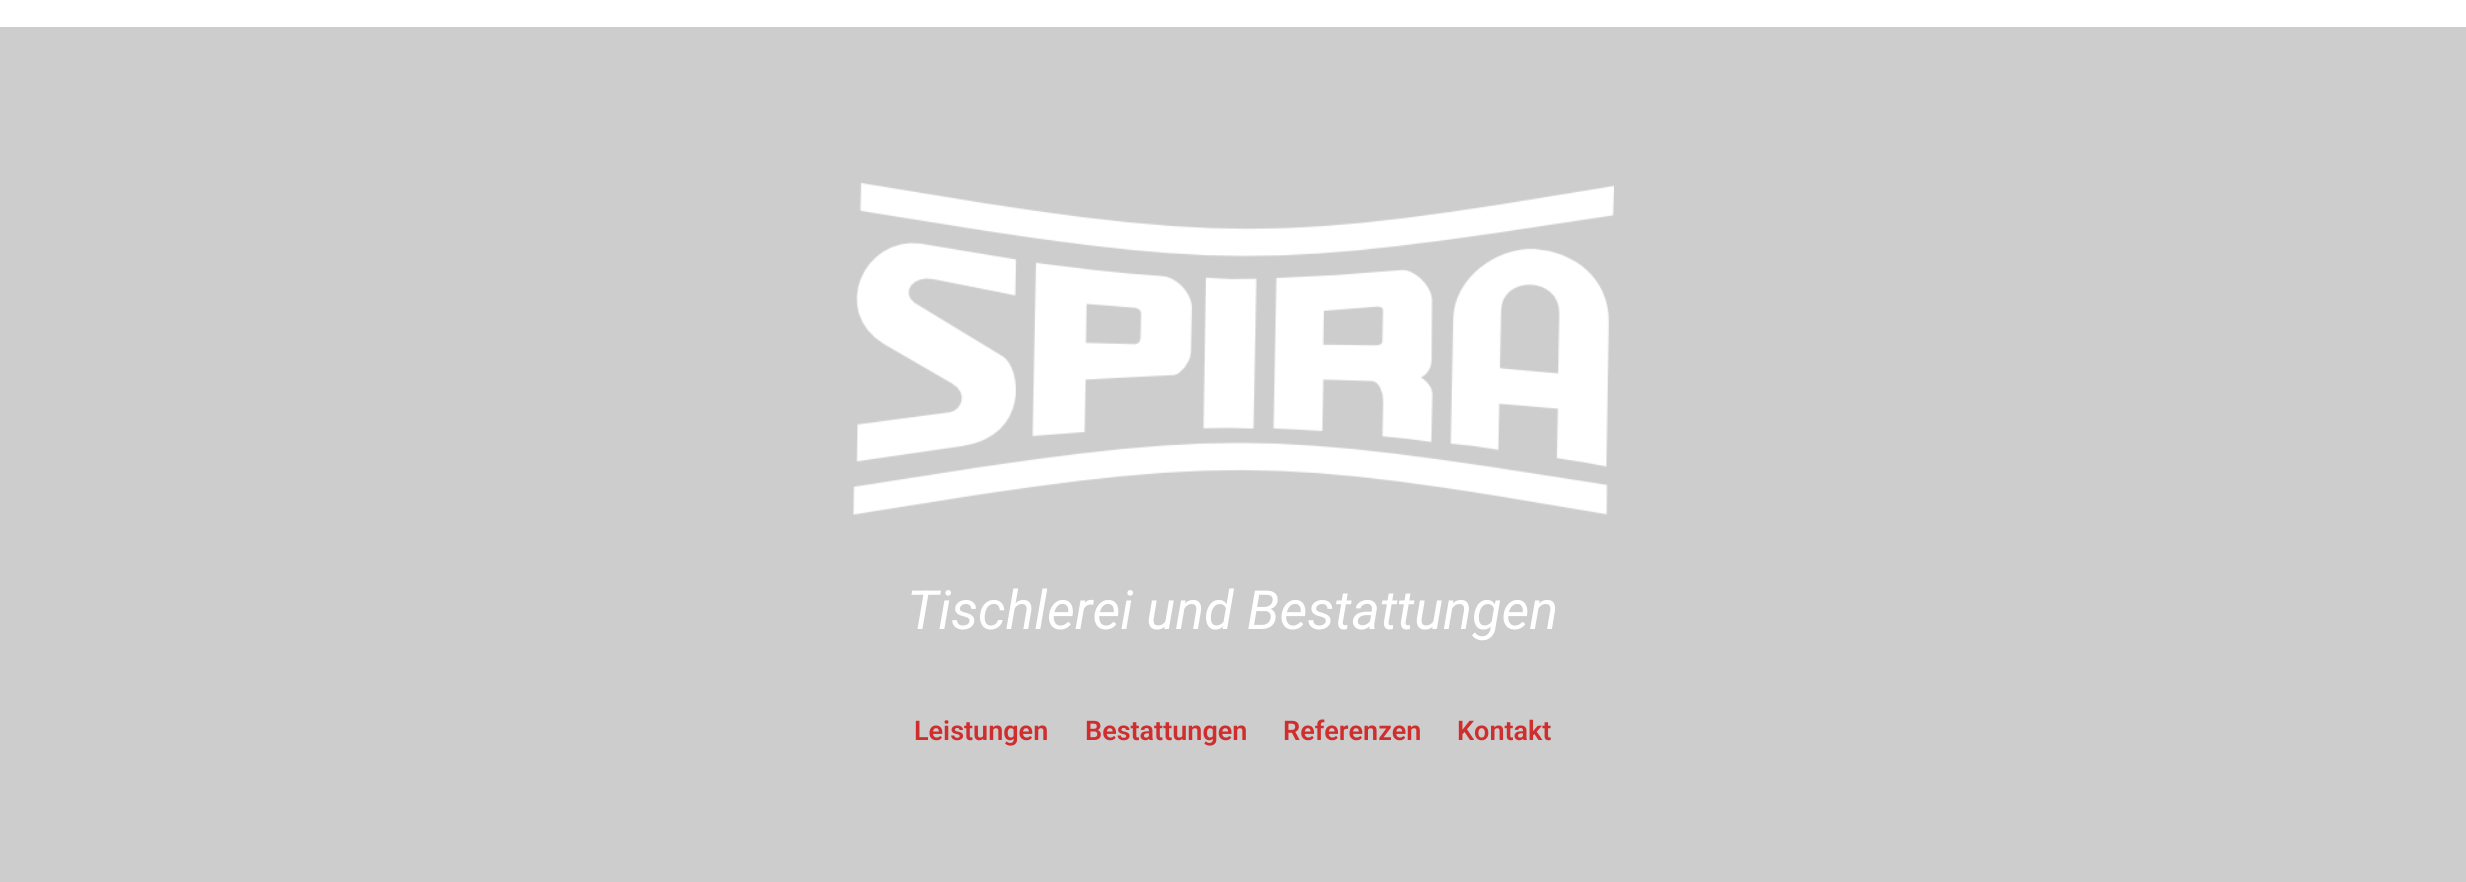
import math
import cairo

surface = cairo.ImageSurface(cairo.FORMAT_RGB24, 2466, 882)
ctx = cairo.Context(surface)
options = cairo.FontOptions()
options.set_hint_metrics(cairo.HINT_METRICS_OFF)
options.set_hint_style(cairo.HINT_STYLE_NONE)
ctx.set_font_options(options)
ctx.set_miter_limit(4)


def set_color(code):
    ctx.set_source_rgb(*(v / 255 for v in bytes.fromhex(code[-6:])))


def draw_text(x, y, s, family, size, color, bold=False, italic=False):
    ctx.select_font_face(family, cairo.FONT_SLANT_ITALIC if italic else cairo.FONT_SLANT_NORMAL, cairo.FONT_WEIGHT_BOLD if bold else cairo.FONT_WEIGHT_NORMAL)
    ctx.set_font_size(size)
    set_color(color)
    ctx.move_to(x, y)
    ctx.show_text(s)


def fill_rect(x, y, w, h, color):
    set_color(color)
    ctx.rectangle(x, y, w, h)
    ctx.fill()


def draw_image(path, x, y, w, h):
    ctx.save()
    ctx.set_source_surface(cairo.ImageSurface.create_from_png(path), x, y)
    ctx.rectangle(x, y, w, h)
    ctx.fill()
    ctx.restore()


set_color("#ffffff")
ctx.paint()
fill_rect(0, 27, 2466, 855, "#cdcdcd")
draw_image("assets/img1.png", 853, 183, 761, 332)
draw_text(907, 629, "Tischlerei und Bestattungen", "Roboto", 54, "#ffffff", italic=True)
draw_text(914, 740, "Leistungen", "Roboto SemiBold", 27, "#cf2e2e")
draw_text(1085, 740, "Bestattungen", "Roboto SemiBold", 27, "#cf2e2e")
draw_text(1283, 740, "Referenzen", "Roboto SemiBold", 27, "#cf2e2e")
draw_text(1457, 740, "Kontakt", "Roboto SemiBold", 27, "#cf2e2e")
surface.write_to_png("output.png")
